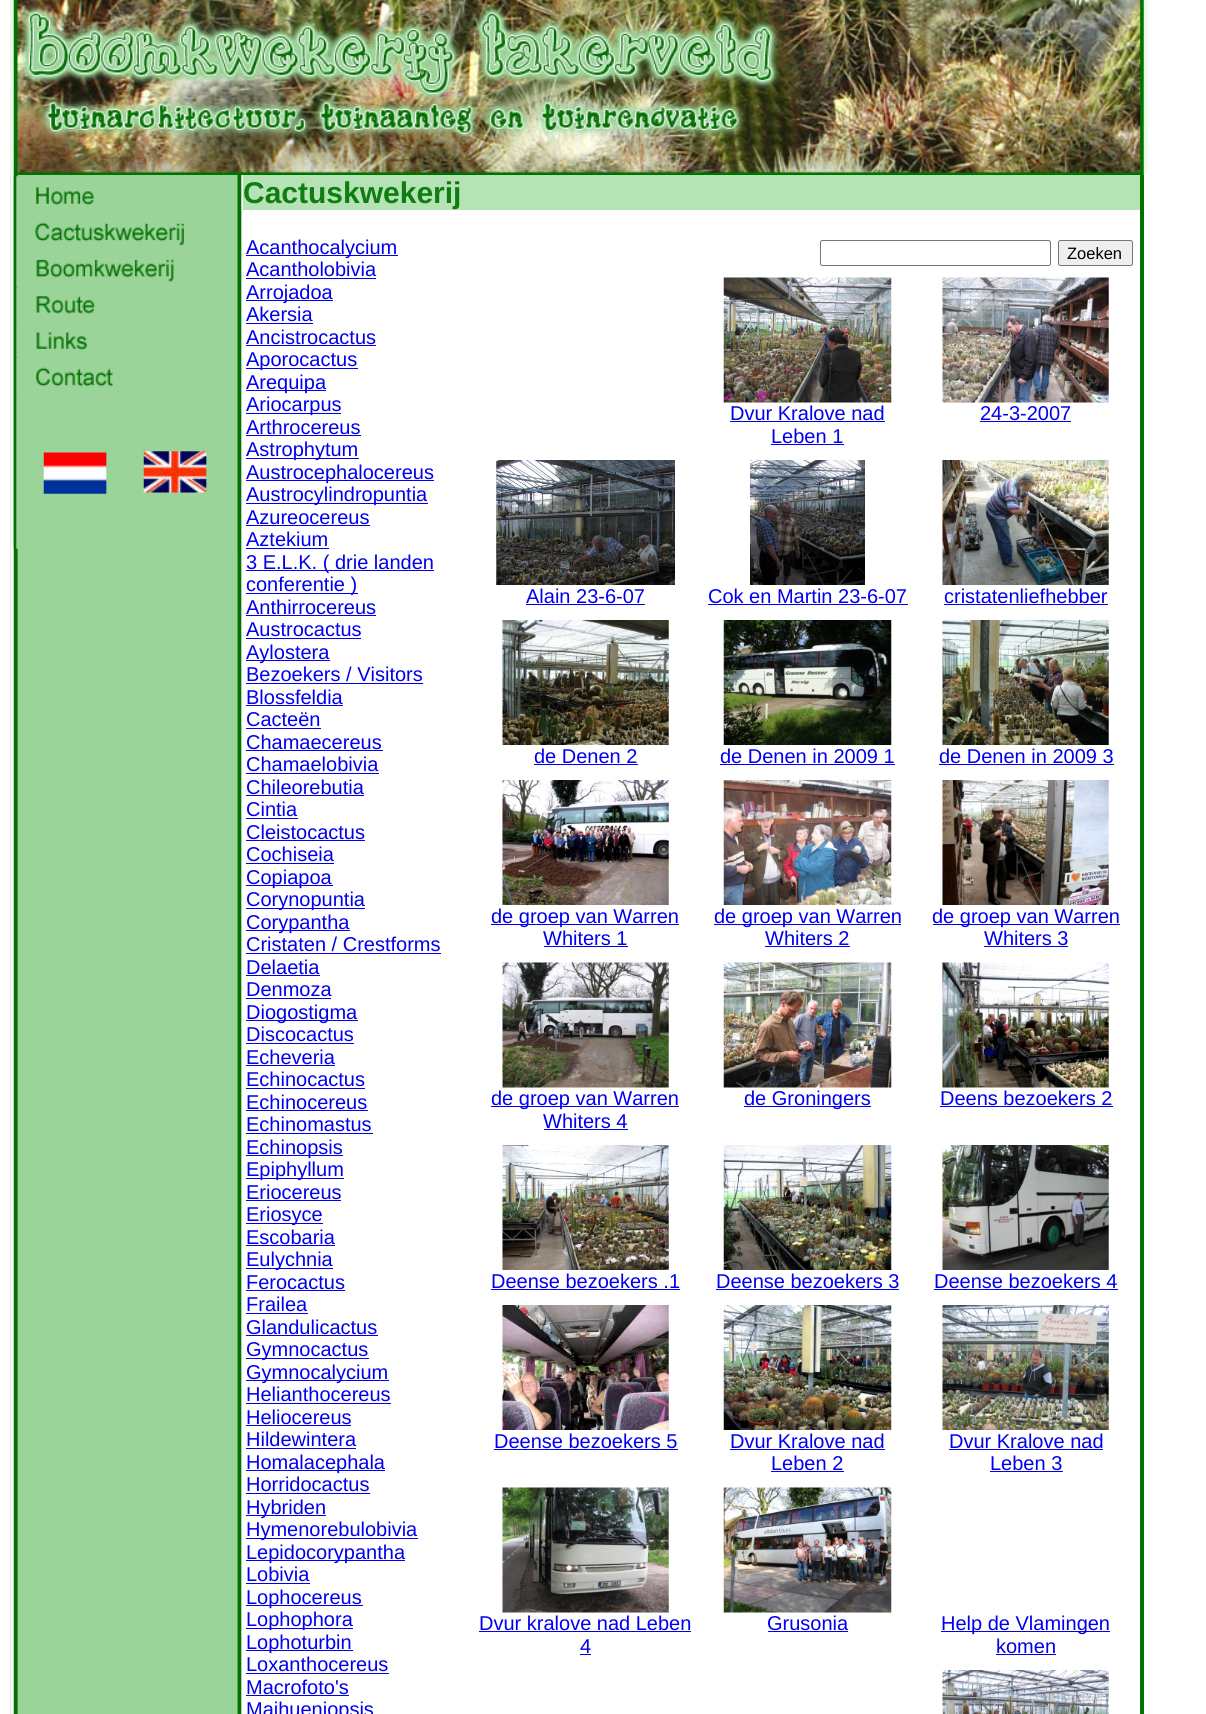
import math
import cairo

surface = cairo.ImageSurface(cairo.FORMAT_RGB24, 1206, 1714)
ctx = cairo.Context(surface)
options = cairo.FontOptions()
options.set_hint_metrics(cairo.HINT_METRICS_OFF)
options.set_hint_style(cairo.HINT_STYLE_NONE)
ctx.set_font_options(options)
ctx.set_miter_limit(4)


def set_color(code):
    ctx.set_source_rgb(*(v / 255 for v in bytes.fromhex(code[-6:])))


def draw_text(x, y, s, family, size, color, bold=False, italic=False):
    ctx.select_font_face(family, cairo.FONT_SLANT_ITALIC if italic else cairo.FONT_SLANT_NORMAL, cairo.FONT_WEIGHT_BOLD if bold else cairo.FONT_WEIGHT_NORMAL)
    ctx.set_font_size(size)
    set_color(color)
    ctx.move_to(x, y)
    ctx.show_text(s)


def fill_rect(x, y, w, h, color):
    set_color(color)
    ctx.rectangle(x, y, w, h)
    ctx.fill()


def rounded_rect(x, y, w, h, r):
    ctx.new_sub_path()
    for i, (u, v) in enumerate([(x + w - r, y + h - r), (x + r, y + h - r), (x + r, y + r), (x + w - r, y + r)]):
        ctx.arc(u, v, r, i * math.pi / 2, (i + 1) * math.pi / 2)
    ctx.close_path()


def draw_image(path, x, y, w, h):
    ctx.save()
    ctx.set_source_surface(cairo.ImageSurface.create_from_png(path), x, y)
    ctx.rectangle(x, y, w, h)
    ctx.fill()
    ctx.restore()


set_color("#ffffff")
ctx.paint()
draw_image("assets/img1.png", 10, 0, 1138, 175)
draw_image("assets/img2.png", 10, 175, 232, 1539)
draw_image("assets/img3.png", 13, 176, 1, 373)
draw_image("assets/img4.png", 16, 176, 222, 39)
draw_image("assets/img5.png", 16, 215, 222, 35)
draw_image("assets/img6.png", 16, 250, 222, 38)
draw_image("assets/img7.png", 16, 287, 222, 37)
draw_image("assets/img8.png", 16, 323, 222, 35)
draw_image("assets/img9.png", 16, 357, 222, 37)
draw_image("assets/img10.png", 16, 393, 222, 156)
fill_rect(243, 175, 897, 35, "#b5e3b5")
draw_text(243, 203, "Cactuskwekerij", "Liberation Sans", 30, "#107d10", bold=True)
fill_rect(1140, 175, 4, 1539, "#047001")
fill_rect(246, 255, 152, 1, "#0000ee")
draw_text(246, 254, "Acanthocalycium", "Liberation Sans", 20, "#0000ee")
draw_text(246, 276, "Acantholobivia", "Liberation Sans", 20, "#0000ee")
fill_rect(246, 278, 130, 1, "#0000ee")
fill_rect(246, 300, 87, 1, "#0000ee")
draw_text(246, 299, "Arrojadoa", "Liberation Sans", 20, "#0000ee")
draw_text(246, 321, "Akersia", "Liberation Sans", 20, "#0000ee")
fill_rect(246, 323, 67, 1, "#0000ee")
draw_text(246, 344, "Ancistrocactus", "Liberation Sans", 20, "#0000ee")
fill_rect(246, 345, 130, 1, "#0000ee")
fill_rect(246, 368, 112, 1, "#0000ee")
draw_text(246, 366, "Aporocactus", "Liberation Sans", 20, "#0000ee")
fill_rect(246, 390, 80, 1, "#0000ee")
draw_text(246, 389, "Arequipa", "Liberation Sans", 20, "#0000ee")
fill_rect(246, 413, 95, 1, "#0000ee")
draw_text(246, 411, "Ariocarpus", "Liberation Sans", 20, "#0000ee")
draw_text(246, 434, "Arthrocereus", "Liberation Sans", 20, "#0000ee")
fill_rect(246, 435, 115, 1, "#0000ee")
fill_rect(246, 458, 113, 1, "#0000ee")
draw_text(246, 456, "Astrophytum", "Liberation Sans", 20, "#0000ee")
fill_rect(246, 480, 188, 1, "#0000ee")
draw_text(246, 479, "Austrocephalocereus", "Liberation Sans", 20, "#0000ee")
fill_rect(246, 503, 182, 1, "#0000ee")
draw_text(246, 501, "Austrocylindropuntia", "Liberation Sans", 20, "#0000ee")
draw_text(246, 524, "Azureocereus", "Liberation Sans", 20, "#0000ee")
fill_rect(246, 525, 124, 1, "#0000ee")
draw_text(246, 546, "Aztekium", "Liberation Sans", 20, "#0000ee")
fill_rect(246, 548, 83, 1, "#0000ee")
fill_rect(246, 570, 188, 1, "#0000ee")
draw_text(246, 569, "3 E.L.K. ( drie landen", "Liberation Sans", 20, "#0000ee")
fill_rect(246, 593, 112, 1, "#0000ee")
draw_text(246, 591, "conferentie )", "Liberation Sans", 20, "#0000ee")
draw_text(246, 614, "Anthirrocereus", "Liberation Sans", 20, "#0000ee")
fill_rect(246, 615, 130, 1, "#0000ee")
draw_text(246, 636, "Austrocactus", "Liberation Sans", 20, "#0000ee")
fill_rect(246, 638, 115, 1, "#0000ee")
fill_rect(246, 660, 84, 1, "#0000ee")
draw_text(246, 659, "Aylostera", "Liberation Sans", 20, "#0000ee")
draw_text(246, 681, "Bezoekers / Visitors", "Liberation Sans", 20, "#0000ee")
fill_rect(246, 683, 177, 1, "#0000ee")
draw_text(246, 704, "Blossfeldia", "Liberation Sans", 20, "#0000ee")
fill_rect(246, 705, 97, 1, "#0000ee")
draw_text(246, 726, "Cacteën", "Liberation Sans", 20, "#0000ee")
fill_rect(246, 728, 75, 1, "#0000ee")
draw_text(246, 749, "Chamaecereus", "Liberation Sans", 20, "#0000ee")
fill_rect(246, 750, 137, 1, "#0000ee")
draw_text(246, 771, "Chamaelobivia", "Liberation Sans", 20, "#0000ee")
fill_rect(246, 773, 133, 1, "#0000ee")
draw_text(246, 794, "Chileorebutia", "Liberation Sans", 20, "#0000ee")
fill_rect(246, 795, 118, 1, "#0000ee")
draw_text(246, 816, "Cintia", "Liberation Sans", 20, "#0000ee")
fill_rect(246, 818, 52, 1, "#0000ee")
draw_text(246, 839, "Cleistocactus", "Liberation Sans", 20, "#0000ee")
fill_rect(246, 840, 119, 1, "#0000ee")
draw_text(246, 861, "Cochiseia", "Liberation Sans", 20, "#0000ee")
fill_rect(246, 863, 88, 1, "#0000ee")
fill_rect(246, 885, 87, 1, "#0000ee")
draw_text(246, 884, "Copiapoa", "Liberation Sans", 20, "#0000ee")
fill_rect(246, 908, 119, 1, "#0000ee")
draw_text(246, 906, "Corynopuntia", "Liberation Sans", 20, "#0000ee")
fill_rect(246, 930, 104, 1, "#0000ee")
draw_text(246, 929, "Corypantha", "Liberation Sans", 20, "#0000ee")
draw_text(246, 951, "Cristaten / Crestforms", "Liberation Sans", 20, "#0000ee")
fill_rect(246, 953, 195, 1, "#0000ee")
draw_text(246, 974, "Delaetia", "Liberation Sans", 20, "#0000ee")
fill_rect(246, 975, 74, 1, "#0000ee")
draw_text(246, 996, "Denmoza", "Liberation Sans", 20, "#0000ee")
fill_rect(246, 998, 85, 1, "#0000ee")
fill_rect(246, 1020, 112, 1, "#0000ee")
draw_text(246, 1019, "Diogostigma", "Liberation Sans", 20, "#0000ee")
draw_text(246, 1041, "Discocactus", "Liberation Sans", 20, "#0000ee")
fill_rect(246, 1043, 108, 1, "#0000ee")
draw_text(246, 1064, "Echeveria", "Liberation Sans", 20, "#0000ee")
fill_rect(246, 1065, 89, 1, "#0000ee")
draw_text(246, 1086, "Echinocactus", "Liberation Sans", 20, "#0000ee")
fill_rect(246, 1088, 119, 1, "#0000ee")
draw_text(246, 1109, "Echinocereus", "Liberation Sans", 20, "#0000ee")
fill_rect(246, 1110, 122, 1, "#0000ee")
draw_text(246, 1131, "Echinomastus", "Liberation Sans", 20, "#0000ee")
fill_rect(246, 1133, 127, 1, "#0000ee")
fill_rect(246, 1155, 97, 1, "#0000ee")
draw_text(246, 1154, "Echinopsis", "Liberation Sans", 20, "#0000ee")
fill_rect(246, 1178, 98, 1, "#0000ee")
draw_text(246, 1176, "Epiphyllum", "Liberation Sans", 20, "#0000ee")
draw_text(246, 1199, "Eriocereus", "Liberation Sans", 20, "#0000ee")
fill_rect(246, 1200, 95, 1, "#0000ee")
fill_rect(246, 1223, 77, 1, "#0000ee")
draw_text(246, 1221, "Eriosyce", "Liberation Sans", 20, "#0000ee")
draw_text(246, 1244, "Escobaria", "Liberation Sans", 20, "#0000ee")
fill_rect(246, 1245, 89, 1, "#0000ee")
fill_rect(246, 1268, 87, 1, "#0000ee")
draw_text(246, 1266, "Eulychnia", "Liberation Sans", 20, "#0000ee")
draw_text(246, 1289, "Ferocactus", "Liberation Sans", 20, "#0000ee")
fill_rect(246, 1290, 99, 1, "#0000ee")
draw_text(246, 1311, "Frailea", "Liberation Sans", 20, "#0000ee")
fill_rect(246, 1313, 62, 1, "#0000ee")
draw_text(246, 1334, "Glandulicactus", "Liberation Sans", 20, "#0000ee")
fill_rect(246, 1335, 132, 1, "#0000ee")
fill_rect(246, 1358, 123, 1, "#0000ee")
draw_text(246, 1356, "Gymnocactus", "Liberation Sans", 20, "#0000ee")
fill_rect(246, 1380, 143, 1, "#0000ee")
draw_text(246, 1379, "Gymnocalycium", "Liberation Sans", 20, "#0000ee")
draw_text(246, 1401, "Helianthocereus", "Liberation Sans", 20, "#0000ee")
fill_rect(246, 1403, 145, 1, "#0000ee")
draw_text(246, 1424, "Heliocereus", "Liberation Sans", 20, "#0000ee")
fill_rect(246, 1425, 105, 1, "#0000ee")
draw_text(246, 1446, "Hildewintera", "Liberation Sans", 20, "#0000ee")
fill_rect(246, 1448, 110, 1, "#0000ee")
fill_rect(246, 1470, 139, 1, "#0000ee")
draw_text(246, 1469, "Homalacephala", "Liberation Sans", 20, "#0000ee")
draw_text(246, 1491, "Horridocactus", "Liberation Sans", 20, "#0000ee")
fill_rect(246, 1493, 124, 1, "#0000ee")
fill_rect(246, 1515, 80, 1, "#0000ee")
draw_text(246, 1514, "Hybriden", "Liberation Sans", 20, "#0000ee")
fill_rect(246, 1538, 172, 1, "#0000ee")
draw_text(246, 1536, "Hymenorebulobivia", "Liberation Sans", 20, "#0000ee")
fill_rect(246, 1560, 159, 1, "#0000ee")
draw_text(246, 1559, "Lepidocorypantha", "Liberation Sans", 20, "#0000ee")
draw_text(246, 1581, "Lobivia", "Liberation Sans", 20, "#0000ee")
fill_rect(246, 1583, 64, 1, "#0000ee")
fill_rect(246, 1605, 117, 1, "#0000ee")
draw_text(246, 1604, "Lophocereus", "Liberation Sans", 20, "#0000ee")
fill_rect(246, 1628, 107, 1, "#0000ee")
draw_text(246, 1626, "Lophophora", "Liberation Sans", 20, "#0000ee")
fill_rect(246, 1650, 107, 1, "#0000ee")
draw_text(246, 1649, "Lophoturbin", "Liberation Sans", 20, "#0000ee")
draw_text(246, 1671, "Loxanthocereus", "Liberation Sans", 20, "#0000ee")
fill_rect(246, 1673, 143, 1, "#0000ee")
draw_text(246, 1694, "Macrofoto's", "Liberation Sans", 20, "#0000ee")
fill_rect(246, 1695, 103, 1, "#0000ee")
draw_text(246, 1716, "Maihueniopsis", "Liberation Sans", 20, "#0000ee")
rounded_rect(820.5, 240.5, 230, 25, 2)
set_color("#767676")
ctx.set_line_width(1)
ctx.stroke()
set_color("#efefef")
rounded_rect(1058.5, 240.5, 74, 25, 2)
ctx.fill_preserve()
set_color("#767676")
ctx.stroke()
draw_text(1067, 259, "Zoeken", "Liberation Sans", 16.5, "#000000")
draw_image("assets/img11.png", 723, 277, 169, 126)
draw_text(730, 420, "Dvur Kralove nad", "Liberation Sans", 20, "#0000ee")
fill_rect(730, 421, 155, 1, "#0000ee")
draw_text(771, 443, "Leben 1", "Liberation Sans", 20, "#0000ee")
fill_rect(771, 444, 73, 1, "#0000ee")
draw_image("assets/img12.png", 942, 277, 167, 126)
draw_text(980, 420, "24-3-2007", "Liberation Sans", 20, "#0000ee")
fill_rect(980, 421, 91, 1, "#0000ee")
draw_image("assets/img13.png", 496, 460, 179, 125)
draw_text(526, 603, "Alain 23-6-07", "Liberation Sans", 20, "#0000ee")
fill_rect(526, 604, 119, 1, "#0000ee")
draw_image("assets/img14.png", 750, 460, 115, 125)
draw_text(708, 603, "Cok en Martin 23-6-07", "Liberation Sans", 20, "#0000ee")
fill_rect(708, 604, 200, 1, "#0000ee")
draw_image("assets/img15.png", 942, 460, 167, 125)
draw_text(944, 603, "cristatenliefhebber", "Liberation Sans", 20, "#0000ee")
fill_rect(944, 604, 164, 1, "#0000ee")
draw_image("assets/img16.png", 502, 620, 167, 125)
draw_text(534, 763, "de Denen 2", "Liberation Sans", 20, "#0000ee")
fill_rect(534, 764, 104, 1, "#0000ee")
draw_image("assets/img17.png", 723, 620, 169, 125)
draw_text(720, 763, "de Denen in 2009 1", "Liberation Sans", 20, "#0000ee")
fill_rect(720, 764, 175, 1, "#0000ee")
draw_image("assets/img18.png", 942, 620, 167, 125)
draw_text(939, 763, "de Denen in 2009 3", "Liberation Sans", 20, "#0000ee")
fill_rect(939, 764, 175, 1, "#0000ee")
draw_image("assets/img19.png", 502, 780, 167, 125)
fill_rect(491, 924, 188, 1, "#0000ee")
draw_text(491, 923, "de groep van Warren", "Liberation Sans", 20, "#0000ee")
draw_text(543, 945, "Whiters 1", "Liberation Sans", 20, "#0000ee")
fill_rect(544, 946, 84, 1, "#0000ee")
draw_image("assets/img20.png", 723, 780, 169, 125)
fill_rect(714, 924, 187, 1, "#0000ee")
draw_text(714, 923, "de groep van Warren", "Liberation Sans", 20, "#0000ee")
draw_text(765, 945, "Whiters 2", "Liberation Sans", 20, "#0000ee")
fill_rect(765, 946, 85, 1, "#0000ee")
draw_image("assets/img21.png", 942, 780, 167, 125)
fill_rect(933, 924, 187, 1, "#0000ee")
draw_text(932, 923, "de groep van Warren", "Liberation Sans", 20, "#0000ee")
draw_text(984, 945, "Whiters 3", "Liberation Sans", 20, "#0000ee")
fill_rect(984, 946, 84, 1, "#0000ee")
draw_image("assets/img22.png", 502, 962, 167, 126)
fill_rect(491, 1106, 188, 1, "#0000ee")
draw_text(491, 1105, "de groep van Warren", "Liberation Sans", 20, "#0000ee")
draw_text(543, 1128, "Whiters 4", "Liberation Sans", 20, "#0000ee")
fill_rect(544, 1129, 84, 1, "#0000ee")
draw_image("assets/img23.png", 723, 962, 169, 126)
fill_rect(744, 1106, 127, 1, "#0000ee")
draw_text(744, 1105, "de Groningers", "Liberation Sans", 20, "#0000ee")
draw_image("assets/img24.png", 942, 962, 167, 126)
draw_text(940, 1105, "Deens bezoekers 2", "Liberation Sans", 20, "#0000ee")
fill_rect(940, 1106, 173, 1, "#0000ee")
draw_image("assets/img25.png", 502, 1145, 167, 125)
draw_text(491, 1288, "Deense bezoekers .1", "Liberation Sans", 20, "#0000ee")
fill_rect(491, 1289, 189, 1, "#0000ee")
draw_image("assets/img26.png", 723, 1145, 169, 125)
draw_text(716, 1288, "Deense bezoekers 3", "Liberation Sans", 20, "#0000ee")
fill_rect(716, 1289, 183, 1, "#0000ee")
draw_image("assets/img27.png", 942, 1145, 167, 125)
draw_text(934, 1288, "Deense bezoekers 4", "Liberation Sans", 20, "#0000ee")
fill_rect(934, 1289, 184, 1, "#0000ee")
draw_image("assets/img28.png", 502, 1305, 167, 125)
draw_text(494, 1448, "Deense bezoekers 5", "Liberation Sans", 20, "#0000ee")
fill_rect(494, 1449, 184, 1, "#0000ee")
draw_image("assets/img29.png", 723, 1305, 169, 125)
draw_text(730, 1448, "Dvur Kralove nad", "Liberation Sans", 20, "#0000ee")
fill_rect(730, 1449, 155, 1, "#0000ee")
draw_text(771, 1470, "Leben 2", "Liberation Sans", 20, "#0000ee")
fill_rect(771, 1471, 73, 1, "#0000ee")
draw_image("assets/img30.png", 942, 1305, 167, 125)
draw_text(949, 1448, "Dvur Kralove nad", "Liberation Sans", 20, "#0000ee")
fill_rect(949, 1449, 154, 1, "#0000ee")
draw_text(990, 1470, "Leben 3", "Liberation Sans", 20, "#0000ee")
fill_rect(990, 1471, 73, 1, "#0000ee")
draw_image("assets/img31.png", 502, 1487, 167, 126)
draw_text(479, 1630, "Dvur kralove nad Leben", "Liberation Sans", 20, "#0000ee")
fill_rect(479, 1631, 212, 1, "#0000ee")
draw_text(580, 1653, "4", "Liberation Sans", 20, "#0000ee")
fill_rect(580, 1654, 11, 1, "#0000ee")
draw_image("assets/img32.png", 723, 1487, 169, 126)
draw_text(767, 1630, "Grusonia", "Liberation Sans", 20, "#0000ee")
fill_rect(768, 1631, 80, 1, "#0000ee")
fill_rect(941, 1631, 169, 1, "#0000ee")
draw_text(941, 1630, "Help de Vlamingen", "Liberation Sans", 20, "#0000ee")
draw_text(996, 1653, "komen", "Liberation Sans", 20, "#0000ee")
fill_rect(996, 1654, 60, 1, "#0000ee")
draw_image("assets/img33.png", 942, 1670, 167, 44)
surface.write_to_png("output.png")
